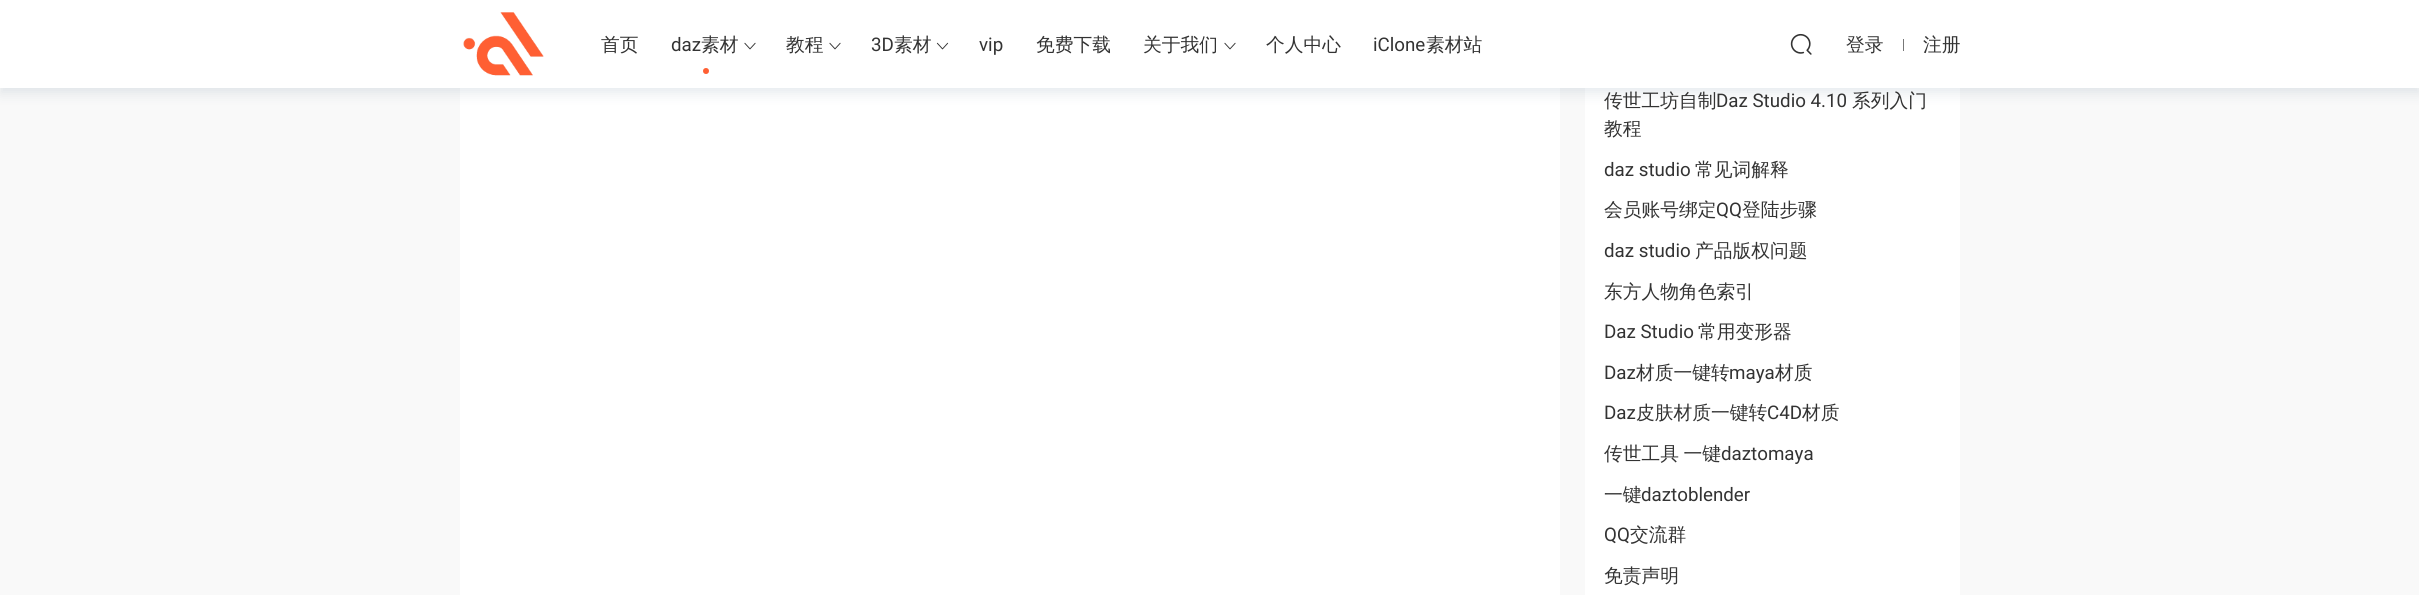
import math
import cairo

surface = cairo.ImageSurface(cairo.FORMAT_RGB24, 2419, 595)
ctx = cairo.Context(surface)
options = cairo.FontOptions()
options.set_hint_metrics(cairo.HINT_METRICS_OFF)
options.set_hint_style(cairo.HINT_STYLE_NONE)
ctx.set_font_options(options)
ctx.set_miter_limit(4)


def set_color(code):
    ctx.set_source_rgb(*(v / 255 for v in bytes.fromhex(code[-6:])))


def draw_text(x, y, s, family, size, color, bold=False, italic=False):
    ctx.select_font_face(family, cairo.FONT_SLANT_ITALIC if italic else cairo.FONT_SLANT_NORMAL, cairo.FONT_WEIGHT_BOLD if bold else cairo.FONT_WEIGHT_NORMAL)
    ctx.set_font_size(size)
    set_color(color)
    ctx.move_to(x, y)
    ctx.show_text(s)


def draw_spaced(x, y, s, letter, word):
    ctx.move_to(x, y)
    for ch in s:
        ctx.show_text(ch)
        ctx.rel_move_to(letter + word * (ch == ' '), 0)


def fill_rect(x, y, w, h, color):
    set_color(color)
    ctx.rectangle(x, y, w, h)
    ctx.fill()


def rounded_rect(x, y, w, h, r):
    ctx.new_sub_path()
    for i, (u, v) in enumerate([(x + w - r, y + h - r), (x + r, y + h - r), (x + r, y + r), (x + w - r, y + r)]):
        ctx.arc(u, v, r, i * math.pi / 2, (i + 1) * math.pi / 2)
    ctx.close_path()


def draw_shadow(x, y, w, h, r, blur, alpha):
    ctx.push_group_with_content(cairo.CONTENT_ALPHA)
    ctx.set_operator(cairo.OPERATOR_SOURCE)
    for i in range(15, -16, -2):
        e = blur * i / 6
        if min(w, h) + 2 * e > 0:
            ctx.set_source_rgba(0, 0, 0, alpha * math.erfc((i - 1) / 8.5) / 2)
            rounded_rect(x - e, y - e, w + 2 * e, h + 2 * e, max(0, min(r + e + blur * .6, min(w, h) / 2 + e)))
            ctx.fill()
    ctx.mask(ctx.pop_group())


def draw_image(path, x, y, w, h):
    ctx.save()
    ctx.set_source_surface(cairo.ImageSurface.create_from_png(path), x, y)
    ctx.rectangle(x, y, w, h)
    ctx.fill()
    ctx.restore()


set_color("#f9f9f9")
ctx.paint()
fill_rect(460, 88, 1100, 507, "#ffffff")
fill_rect(1585, 88, 375, 507, "#ffffff")
set_color("#113a5d")
draw_shadow(0, 6, 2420, 88, 0, 6, 0.1)
fill_rect(0, 0, 2419, 88, "#ffffff")
draw_image("assets/img1.png", 463, 12, 81, 64)
draw_text(601, 51, "首页", "WenQuanYi Zen Hei Medium", 18.75, "#333333")
draw_text(671, 51, "daz", "Roboto", 18.75, "#333333")
draw_text(701, 51, "素材", "WenQuanYi Zen Hei Medium", 18.75, "#333333")
set_color("#ff5f33")
ctx.new_path()
ctx.arc(706, 71, 3, 0, 2 * math.pi)
ctx.fill()
draw_image("assets/img2.png", 744, 42, 12, 8)
draw_text(786, 51, "教程", "WenQuanYi Zen Hei Medium", 18.75, "#333333")
draw_image("assets/img2.png", 829, 42, 12, 8)
draw_text(871, 51, "3D", "Roboto", 18.75, "#333333")
draw_text(894, 51, "素材", "WenQuanYi Zen Hei Medium", 18.75, "#333333")
draw_image("assets/img3.png", 936, 42, 13, 8)
draw_text(979, 51, "vip", "Roboto", 18.75, "#333333")
draw_text(1036, 51, "免费下载", "WenQuanYi Zen Hei Medium", 18.75, "#333333")
draw_text(1143, 51, "关于我们", "WenQuanYi Zen Hei Medium", 18.75, "#333333")
draw_image("assets/img2.png", 1224, 42, 12, 8)
draw_text(1266, 51, "个人中心", "WenQuanYi Zen Hei Medium", 18.75, "#333333")
draw_text(1373, 51, "iClone", "Roboto", 18.75, "#333333")
draw_text(1426, 51, "素材站", "WenQuanYi Zen Hei Medium", 18.75, "#333333")
draw_image("assets/img4.png", 1790, 33, 22, 22)
draw_text(1846, 51, "登录", "WenQuanYi Zen Hei Medium", 18.75, "#333333")
fill_rect(1903, 39, 1, 12, "#777777")
draw_text(1923, 51, "注册", "WenQuanYi Zen Hei Medium", 18.75, "#333333")
draw_text(1604, 107, "传世工坊自制", "WenQuanYi Zen Hei Medium", 18.75, "#333333")
draw_text(1716, 107, "Daz Studio 4.10", "Roboto", 18.75, "#333333")
draw_text(1852, 107, "系列入门", "WenQuanYi Zen Hei Medium", 18.75, "#333333")
draw_text(1604, 135, "教程", "WenQuanYi Zen Hei Medium", 18.75, "#333333")
draw_text(1604, 176, "daz studio", "Roboto", 18.75, "#333333")
draw_text(1695, 176, "常见词解释", "WenQuanYi Zen Hei Medium", 18.75, "#333333")
draw_text(1604, 216, "会员账号绑定", "WenQuanYi Zen Hei Medium", 18.75, "#333333")
draw_text(1716, 216, "QQ", "Roboto", 18.75, "#333333")
draw_text(1742, 216, "登陆步骤", "WenQuanYi Zen Hei Medium", 18.75, "#333333")
draw_text(1604, 257, "daz studio", "Roboto", 18.75, "#333333")
draw_text(1695, 257, "产品版权问题", "WenQuanYi Zen Hei Medium", 18.75, "#333333")
draw_text(1604, 298, "东方人物角色索引", "WenQuanYi Zen Hei Medium", 18.75, "#333333")
draw_text(1604, 338, "Daz Studio", "Roboto", 18.75, "#333333")
draw_text(1698, 338, "常用变形器", "WenQuanYi Zen Hei Medium", 18.75, "#333333")
draw_text(1604, 379, "Daz", "Roboto", 18.75, "#333333")
draw_text(1636, 379, "材质一键转", "WenQuanYi Zen Hei Medium", 18.75, "#333333")
draw_text(1729, 379, "maya", "Roboto", 18.75, "#333333")
draw_text(1775, 379, "材质", "WenQuanYi Zen Hei Medium", 18.75, "#333333")
draw_text(1604, 419, "Daz", "Roboto", 18.75, "#333333")
draw_text(1636, 419, "皮肤材质一键转", "WenQuanYi Zen Hei Medium", 18.75, "#333333")
draw_text(1767, 419, "C4D", "Roboto", 18.75, "#333333")
draw_text(1802, 419, "材质", "WenQuanYi Zen Hei Medium", 18.75, "#333333")
draw_spaced(1604, 460, "传世工具 一键", 0, -1)
draw_text(1721, 460, "daztomaya", "Roboto", 18.75, "#333333")
draw_text(1604, 501, "一键", "WenQuanYi Zen Hei Medium", 18.75, "#333333")
draw_text(1641, 501, "daztoblender", "Roboto", 18.75, "#333333")
draw_text(1604, 541, "QQ", "Roboto", 18.75, "#333333")
draw_text(1630, 541, "交流群", "WenQuanYi Zen Hei Medium", 18.75, "#333333")
draw_text(1604, 582, "免责声明", "WenQuanYi Zen Hei Medium", 18.75, "#333333")
surface.write_to_png("output.png")
